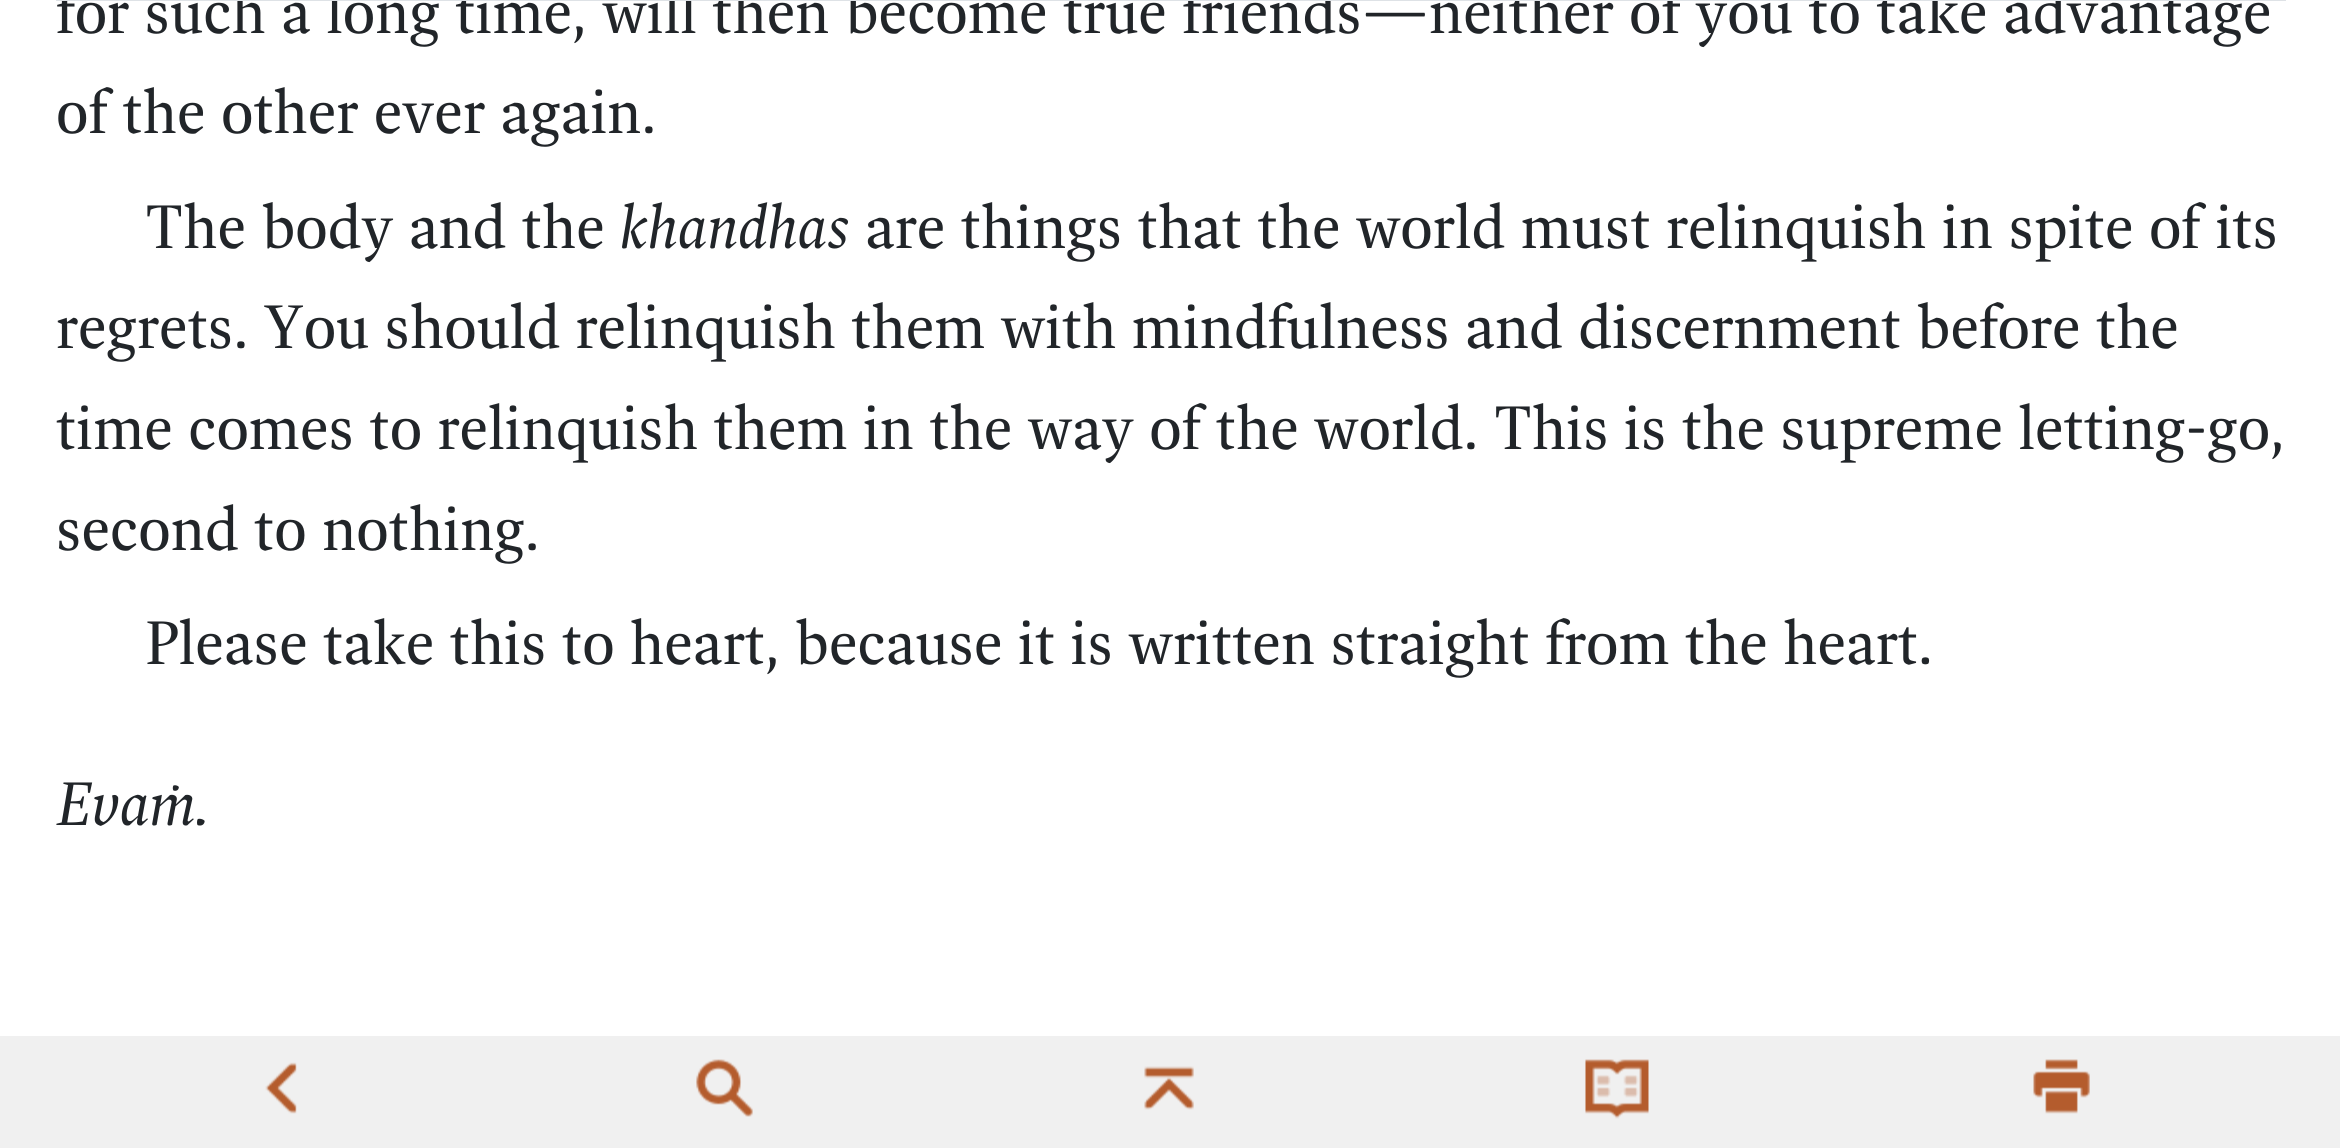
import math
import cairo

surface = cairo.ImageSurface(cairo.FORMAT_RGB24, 2340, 1148)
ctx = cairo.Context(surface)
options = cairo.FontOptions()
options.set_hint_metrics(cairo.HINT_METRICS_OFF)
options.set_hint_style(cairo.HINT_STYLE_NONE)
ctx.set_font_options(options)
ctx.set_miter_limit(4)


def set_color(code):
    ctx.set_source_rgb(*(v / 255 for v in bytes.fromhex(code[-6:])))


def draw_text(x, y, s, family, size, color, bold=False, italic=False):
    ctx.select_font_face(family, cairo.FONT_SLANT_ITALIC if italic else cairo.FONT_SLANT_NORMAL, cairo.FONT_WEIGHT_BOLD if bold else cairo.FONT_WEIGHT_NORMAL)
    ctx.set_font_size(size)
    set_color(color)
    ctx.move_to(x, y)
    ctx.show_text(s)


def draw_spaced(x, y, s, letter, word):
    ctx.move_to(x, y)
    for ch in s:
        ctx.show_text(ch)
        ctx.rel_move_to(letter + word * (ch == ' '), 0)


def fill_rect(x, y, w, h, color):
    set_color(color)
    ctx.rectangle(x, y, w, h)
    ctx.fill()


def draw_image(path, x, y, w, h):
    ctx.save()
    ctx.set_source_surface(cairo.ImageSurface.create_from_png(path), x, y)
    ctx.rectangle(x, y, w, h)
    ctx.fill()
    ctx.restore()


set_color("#ffffff")
ctx.paint()
draw_text(56, 33, "for such a long time, will then become true friends—neither of you to take advantage", "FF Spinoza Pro", 67.2, "#212529")
draw_text(56, 133, "of the other ever again.", "FF Spinoza Pro", 67.2, "#212529")
draw_text(145, 248, "The body and the", "FF Spinoza Pro", 67.2, "#212529")
draw_text(620, 248, "khandhas", "FF Spinoza Pro", 67.2, "#212529", italic=True)
draw_text(865, 248, "are things that the world must relinquish in spite of its", "FF Spinoza Pro", 67.2, "#212529")
draw_spaced(56, 348, "regrets. You should relinquish them with mindfulness and discernment before the", 0, -0.1)
draw_text(56, 449, "time comes to relinquish them in the way of the world. This is the supreme letting-go,", "FF Spinoza Pro", 67.2, "#212529")
draw_text(56, 550, "second to nothing.", "FF Spinoza Pro", 67.2, "#212529")
draw_text(145, 664, "Please take this to heart, because it is written straight from the heart.", "FF Spinoza Pro", 67.2, "#212529")
draw_text(56, 825, "Evaṁ.", "FF Spinoza Pro", 67.2, "#212529", italic=True)
fill_rect(56, 0, 2230, 1, "#dee2e6")
fill_rect(0, 1036, 2340, 112, "#f0f0f0")
draw_image("assets/img1.png", 265, 1062, 32, 52)
draw_image("assets/img2.png", 696, 1059, 57, 58)
draw_image("assets/img3.png", 1144, 1066, 50, 44)
draw_image("assets/img4.png", 1585, 1059, 64, 60)
draw_image("assets/img5.png", 2033, 1059, 57, 55)
surface.write_to_png("output.png")
